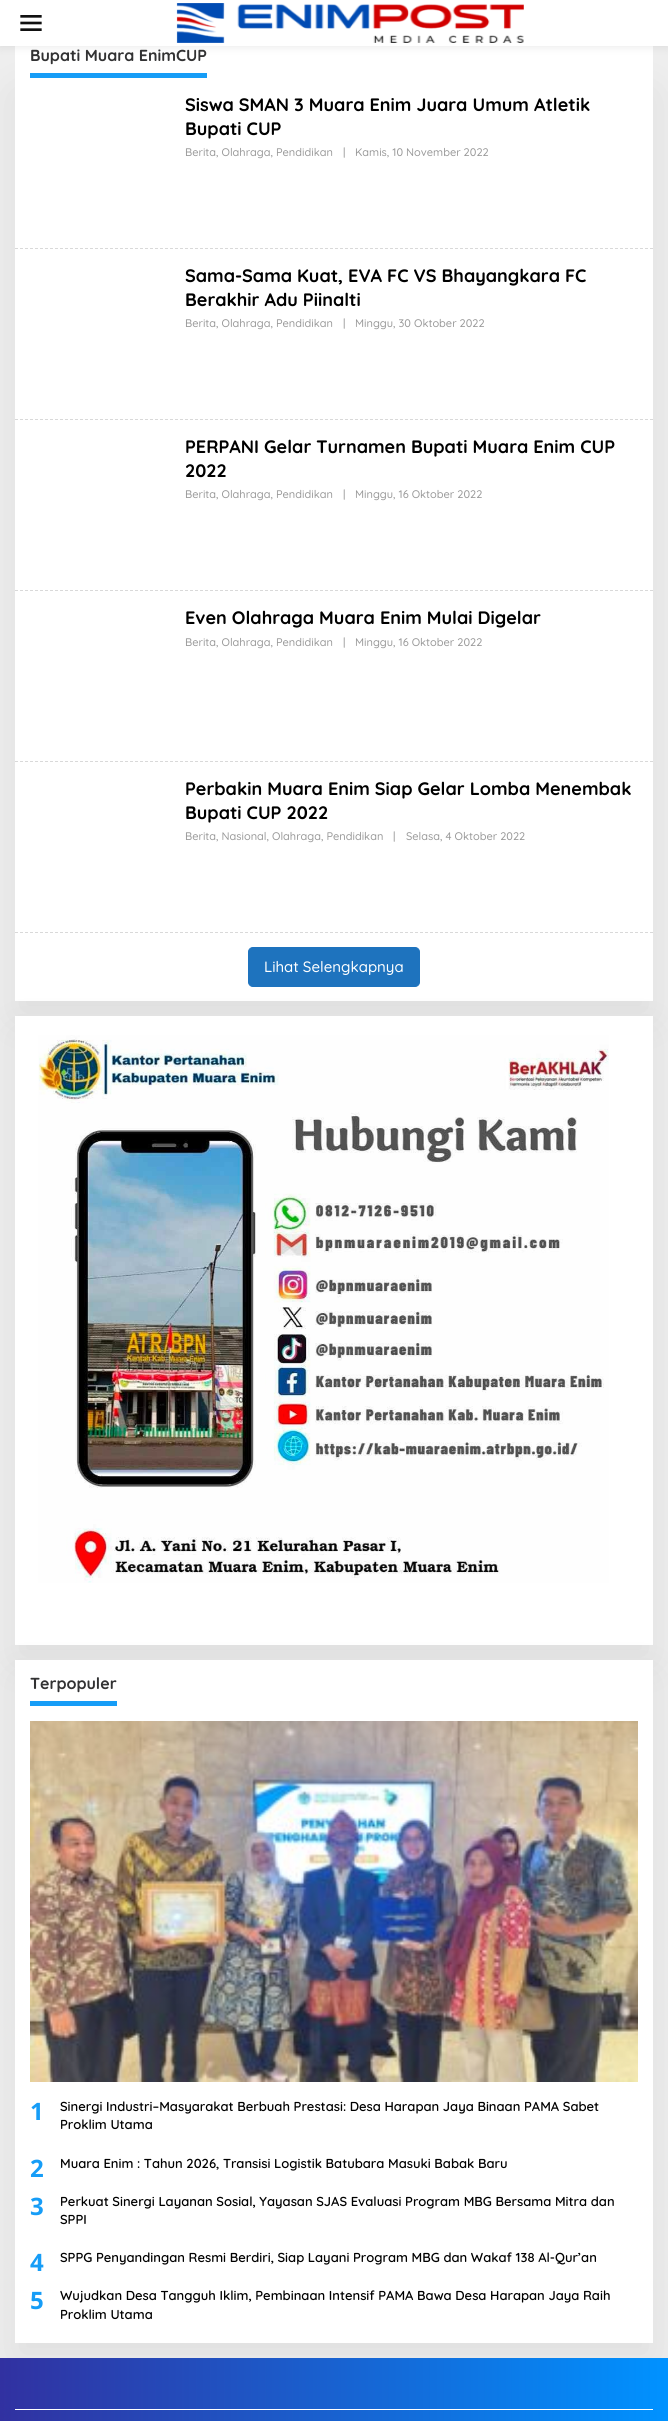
import math
import cairo

surface = cairo.ImageSurface(cairo.FORMAT_RGB24, 668, 2421)
ctx = cairo.Context(surface)
options = cairo.FontOptions()
options.set_hint_metrics(cairo.HINT_METRICS_OFF)
options.set_hint_style(cairo.HINT_STYLE_NONE)
ctx.set_font_options(options)
ctx.set_miter_limit(4)


def set_color(code):
    ctx.set_source_rgb(*(v / 255 for v in bytes.fromhex(code[-6:])))


def draw_text(x, y, s, family, size, color, bold=False, italic=False):
    ctx.select_font_face(family, cairo.FONT_SLANT_ITALIC if italic else cairo.FONT_SLANT_NORMAL, cairo.FONT_WEIGHT_BOLD if bold else cairo.FONT_WEIGHT_NORMAL)
    ctx.set_font_size(size)
    set_color(color)
    ctx.move_to(x, y)
    ctx.show_text(s)


def fill_rect(x, y, w, h, color):
    set_color(color)
    ctx.rectangle(x, y, w, h)
    ctx.fill()


def rounded_rect(x, y, w, h, r):
    ctx.new_sub_path()
    for i, (u, v) in enumerate([(x + w - r, y + h - r), (x + r, y + h - r), (x + r, y + r), (x + w - r, y + r)]):
        ctx.arc(u, v, r, i * math.pi / 2, (i + 1) * math.pi / 2)
    ctx.close_path()


def draw_shadow(x, y, w, h, r, blur, alpha):
    ctx.push_group_with_content(cairo.CONTENT_ALPHA)
    ctx.set_operator(cairo.OPERATOR_SOURCE)
    for i in range(15, -16, -2):
        e = blur * i / 6
        if min(w, h) + 2 * e > 0:
            ctx.set_source_rgba(0, 0, 0, alpha * math.erfc((i - 1) / 8.5) / 2)
            rounded_rect(x - e, y - e, w + 2 * e, h + 2 * e, max(0, min(r + e + blur * .6, min(w, h) / 2 + e)))
            ctx.fill()
    ctx.mask(ctx.pop_group())


def draw_image(path, x, y, w, h):
    ctx.save()
    ctx.set_source_surface(cairo.ImageSurface.create_from_png(path), x, y)
    ctx.rectangle(x, y, w, h)
    ctx.fill()
    ctx.restore()


set_color("#eeeeee")
ctx.paint()
set_color("#000000")
draw_shadow(15, 94, 638, 923, 0, 22.5, 0.07)
fill_rect(15, 46, 638, 955, "#ffffff")
set_color("#000000")
draw_shadow(0, 0, 668, 46, 0, 5, 0.1)
fill_rect(0, 0, 668, 46, "#ffffff")
draw_image("assets/img1.png", 20, 15, 22, 16)
draw_image("assets/img2.png", 176, 3, 348, 40)
fill_rect(30, 73, 177, 5, "#169df7")
draw_text(30, 61, "Bupati Muara EnimCUP", "Quicksand", 16, "#323233", bold=True)
ctx.new_path()
ctx.move_to(15, 248.5)
ctx.line_to(653, 248.5)
set_color("#d9d9d9")
ctx.set_line_width(1)
ctx.set_dash([3, 2])
ctx.stroke()
draw_text(185, 111, "Siswa SMAN 3 Muara Enim Juara Umum Atletik", "Quicksand", 18, "#000000", bold=True)
draw_text(185, 135, "Bupati CUP", "Quicksand", 18, "#000000", bold=True)
draw_text(185, 156, "Berita, Olahraga, Pendidikan", "Quicksand Medium", 11, "#999999")
draw_text(343, 156, "|", "Quicksand Medium", 11, "#999999")
draw_text(355, 156, "Kamis, 10 November 2022", "Quicksand Medium", 11, "#999999")
ctx.new_path()
ctx.move_to(15, 419.5)
ctx.line_to(653, 419.5)
set_color("#d9d9d9")
ctx.stroke()
draw_text(185, 282, "Sama-Sama Kuat, EVA FC VS Bhayangkara FC", "Quicksand", 18, "#000000", bold=True)
draw_text(185, 306, "Berakhir Adu Piinalti", "Quicksand", 18, "#000000", bold=True)
draw_text(185, 327, "Berita, Olahraga, Pendidikan", "Quicksand Medium", 11, "#999999")
draw_text(343, 327, "|", "Quicksand Medium", 11, "#999999")
draw_text(355, 327, "Minggu, 30 Oktober 2022", "Quicksand Medium", 11, "#999999")
ctx.new_path()
ctx.move_to(15, 590.5)
ctx.line_to(653, 590.5)
set_color("#d9d9d9")
ctx.stroke()
draw_text(185, 453, "PERPANI Gelar Turnamen Bupati Muara Enim CUP", "Quicksand", 18, "#000000", bold=True)
draw_text(185, 477, "2022", "Quicksand", 18, "#000000", bold=True)
draw_text(185, 498, "Berita, Olahraga, Pendidikan", "Quicksand Medium", 11, "#999999")
draw_text(343, 498, "|", "Quicksand Medium", 11, "#999999")
draw_text(355, 498, "Minggu, 16 Oktober 2022", "Quicksand Medium", 11, "#999999")
ctx.new_path()
ctx.move_to(15, 761.5)
ctx.line_to(653, 761.5)
set_color("#d9d9d9")
ctx.stroke()
draw_text(185, 624, "Even Olahraga Muara Enim Mulai Digelar", "Quicksand", 18, "#000000", bold=True)
draw_text(185, 646, "Berita, Olahraga, Pendidikan", "Quicksand Medium", 11, "#999999")
draw_text(343, 646, "|", "Quicksand Medium", 11, "#999999")
draw_text(355, 646, "Minggu, 16 Oktober 2022", "Quicksand Medium", 11, "#999999")
ctx.new_path()
ctx.move_to(15, 932.5)
ctx.line_to(653, 932.5)
set_color("#d9d9d9")
ctx.stroke()
draw_text(185, 795, "Perbakin Muara Enim Siap Gelar Lomba Menembak", "Quicksand", 18, "#000000", bold=True)
draw_text(185, 819, "Bupati CUP 2022", "Quicksand", 18, "#000000", bold=True)
draw_text(185, 840, "Berita, Nasional, Olahraga, Pendidikan", "Quicksand Medium", 11, "#999999")
draw_text(393, 840, "|", "Quicksand Medium", 11, "#999999")
draw_text(406, 840, "Selasa, 4 Oktober 2022", "Quicksand Medium", 11, "#999999")
set_color("#1e73be")
rounded_rect(248.5, 947.5, 171, 39, 4.5)
ctx.fill_preserve()
ctx.set_dash([])
ctx.stroke()
draw_text(264, 972, "Lihat Selengkapnya", "Quicksand Medium", 15, "#ffffff")
set_color("#000000")
draw_shadow(15, 1032, 638, 629, 0, 22.5, 0.07)
fill_rect(15, 1016, 638, 629, "#ffffff")
draw_image("assets/img3.png", 38, 1035, 571, 548)
set_color("#000000")
draw_shadow(15, 1676, 638, 683, 0, 22.5, 0.07)
fill_rect(15, 1660, 638, 683, "#ffffff")
fill_rect(30, 1701, 87, 5, "#169df7")
draw_text(30, 1689, "Terpopuler", "Quicksand", 16, "#323233", bold=True)
draw_image("assets/img4.png", 30, 1721, 608, 361)
draw_text(30, 2120, "1", "Open Sans", 24, "#169df7", bold=True)
draw_text(60, 2111, "Sinergi Industri–Masyarakat Berbuah Prestasi: Desa Harapan Jaya Binaan PAMA Sabet", "Quicksand SemiBold", 13, "#000000")
draw_text(60, 2129, "Proklim Utama", "Quicksand SemiBold", 13, "#000000")
draw_text(30, 2177, "2", "Open Sans", 24, "#169df7", bold=True)
draw_text(60, 2168, "Muara Enim : Tahun 2026, Transisi Logistik Batubara Masuki Babak Baru", "Quicksand SemiBold", 13, "#000000")
draw_text(30, 2215, "3", "Open Sans", 24, "#169df7", bold=True)
draw_text(60, 2206, "Perkuat Sinergi Layanan Sosial, Yayasan SJAS Evaluasi Program MBG Bersama Mitra dan", "Quicksand SemiBold", 13, "#000000")
draw_text(60, 2224, "SPPI", "Quicksand SemiBold", 13, "#000000")
draw_text(30, 2271, "4", "Open Sans", 24, "#169df7", bold=True)
draw_text(60, 2262, "SPPG Penyandingan Resmi Berdiri, Siap Layani Program MBG dan Wakaf 138 Al-Qur’an", "Quicksand SemiBold", 13, "#000000")
draw_text(30, 2309, "5", "Open Sans", 24, "#169df7", bold=True)
draw_text(60, 2300, "Wujudkan Desa Tangguh Iklim, Pembinaan Intensif PAMA Bawa Desa Harapan Jaya Raih", "Quicksand SemiBold", 13, "#000000")
draw_text(60, 2319, "Proklim Utama", "Quicksand SemiBold", 13, "#000000")
gradient = cairo.LinearGradient(0, 2413, 668, 2413)
gradient.add_color_stop_rgba(0, 0.192, 0.192, 0.631, 1)
gradient.add_color_stop_rgba(1, 0, 0.573, 1, 1)
ctx.set_source(gradient)
ctx.rectangle(0, 2358, 668, 63)
ctx.fill()
fill_rect(15, 2409, 638, 1, "#ffffff")
surface.write_to_png("output.png")
